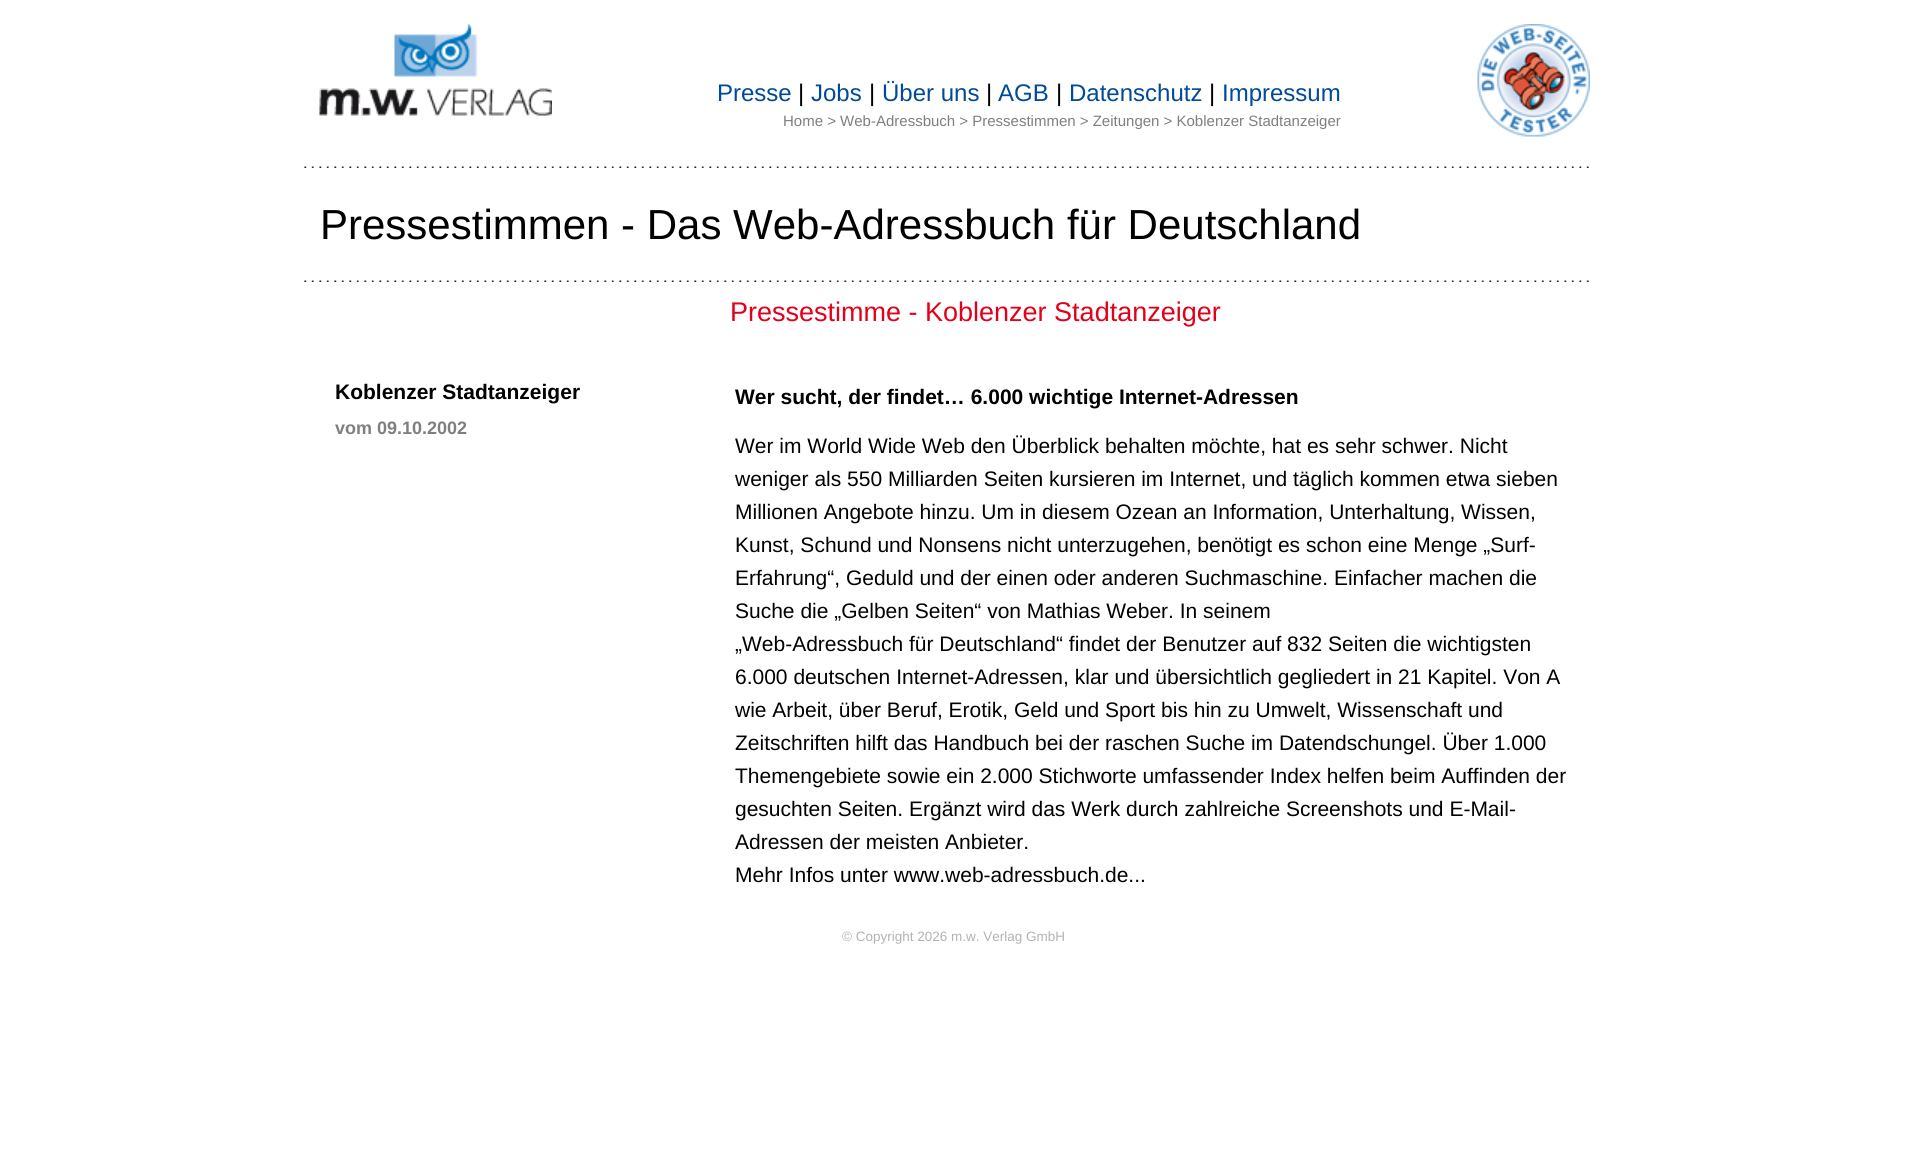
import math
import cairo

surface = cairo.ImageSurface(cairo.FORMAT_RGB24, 1906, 1174)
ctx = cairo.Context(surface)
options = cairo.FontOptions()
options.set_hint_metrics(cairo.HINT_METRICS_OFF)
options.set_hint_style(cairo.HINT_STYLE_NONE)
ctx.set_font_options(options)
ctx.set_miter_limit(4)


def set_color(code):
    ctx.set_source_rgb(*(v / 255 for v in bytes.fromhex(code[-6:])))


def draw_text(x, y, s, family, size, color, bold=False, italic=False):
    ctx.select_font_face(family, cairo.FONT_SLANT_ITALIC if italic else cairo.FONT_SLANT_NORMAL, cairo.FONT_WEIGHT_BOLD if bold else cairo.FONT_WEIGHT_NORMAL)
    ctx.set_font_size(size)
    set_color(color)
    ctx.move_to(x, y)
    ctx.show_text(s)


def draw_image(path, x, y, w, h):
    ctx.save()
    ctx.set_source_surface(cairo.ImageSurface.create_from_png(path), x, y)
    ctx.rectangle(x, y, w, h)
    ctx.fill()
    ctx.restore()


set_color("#ffffff")
ctx.paint()
draw_image("assets/img1.png", 319, 24, 233, 92)
draw_text(717, 101, "Presse", "Liberation Sans", 24, "#004a99")
draw_text(798, 101, "|", "Liberation Sans", 24, "#000000")
draw_text(811, 101, "Jobs", "Liberation Sans", 24, "#004a99")
draw_text(869, 101, "|", "Liberation Sans", 24, "#000000")
draw_text(882, 101, "Über uns", "Liberation Sans", 24, "#004a99")
draw_text(986, 101, "|", "Liberation Sans", 24, "#000000")
draw_text(998, 101, "AGB", "Liberation Sans", 24, "#004a99")
draw_text(1056, 101, "|", "Liberation Sans", 24, "#000000")
draw_text(1069, 101, "Datenschutz", "Liberation Sans", 24, "#004a99")
draw_text(1209, 101, "|", "Liberation Sans", 24, "#000000")
draw_text(1222, 101, "Impressum", "Liberation Sans", 24, "#004a99")
draw_text(783, 126, "Home > Web-Adressbuch > Pressestimmen > Zeitungen > Koblenzer Stadtanzeiger", "Liberation Sans", 15, "#7f7f7f")
draw_image("assets/img2.png", 1477, 24, 113, 113)
draw_image("assets/img3.png", 304, 166, 1285, 2)
draw_text(320, 239, "Pressestimmen - Das Web-Adressbuch für Deutschland", "Liberation Sans", 42, "#000000")
draw_image("assets/img3.png", 304, 280, 1285, 2)
draw_text(730, 321, "Pressestimme - Koblenzer Stadtanzeiger", "Liberation Sans", 27, "#e2001a")
draw_text(335, 399, "Koblenzer Stadtanzeiger", "Liberation Sans", 21, "#000000", bold=True)
draw_text(335, 434, "vom 09.10.2002", "Liberation Sans", 18, "#7f7f7f", bold=True)
draw_text(735, 404, "Wer sucht, der findet… 6.000 wichtige Internet-Adressen", "Liberation Sans", 21, "#000000", bold=True)
draw_text(735, 453, "Wer im World Wide Web den Überblick behalten möchte, hat es sehr schwer. Nicht", "Liberation Sans", 21, "#000000")
draw_text(735, 486, "weniger als 550 Milliarden Seiten kursieren im Internet, und täglich kommen etwa sieben", "Liberation Sans", 21, "#000000")
draw_text(735, 519, "Millionen Angebote hinzu. Um in diesem Ozean an Information, Unterhaltung, Wissen,", "Liberation Sans", 21, "#000000")
draw_text(735, 552, "Kunst, Schund und Nonsens nicht unterzugehen, benötigt es schon eine Menge „Surf-", "Liberation Sans", 21, "#000000")
draw_text(735, 585, "Erfahrung“, Geduld und der einen oder anderen Suchmaschine. Einfacher machen die", "Liberation Sans", 21, "#000000")
draw_text(735, 618, "Suche die „Gelben Seiten“ von Mathias Weber. In seinem", "Liberation Sans", 21, "#000000")
draw_text(735, 651, "„Web-Adressbuch für Deutschland“ findet der Benutzer auf 832 Seiten die wichtigsten", "Liberation Sans", 21, "#000000")
draw_text(735, 684, "6.000 deutschen Internet-Adressen, klar und übersichtlich gegliedert in 21 Kapitel. Von A", "Liberation Sans", 21, "#000000")
draw_text(735, 717, "wie Arbeit, über Beruf, Erotik, Geld und Sport bis hin zu Umwelt, Wissenschaft und", "Liberation Sans", 21, "#000000")
draw_text(735, 750, "Zeitschriften hilft das Handbuch bei der raschen Suche im Datendschungel. Über 1.000", "Liberation Sans", 21, "#000000")
draw_text(735, 783, "Themengebiete sowie ein 2.000 Stichworte umfassender Index helfen beim Auffinden der", "Liberation Sans", 21, "#000000")
draw_text(735, 816, "gesuchten Seiten. Ergänzt wird das Werk durch zahlreiche Screenshots und E-Mail-", "Liberation Sans", 21, "#000000")
draw_text(735, 849, "Adressen der meisten Anbieter.", "Liberation Sans", 21, "#000000")
draw_text(735, 882, "Mehr Infos unter www.web-adressbuch.de...", "Liberation Sans", 21, "#000000")
draw_text(842, 941, "© Copyright 2026 m.w. Verlag GmbH", "Liberation Sans", 13.5, "#b2b2b2")
surface.write_to_png("output.png")
